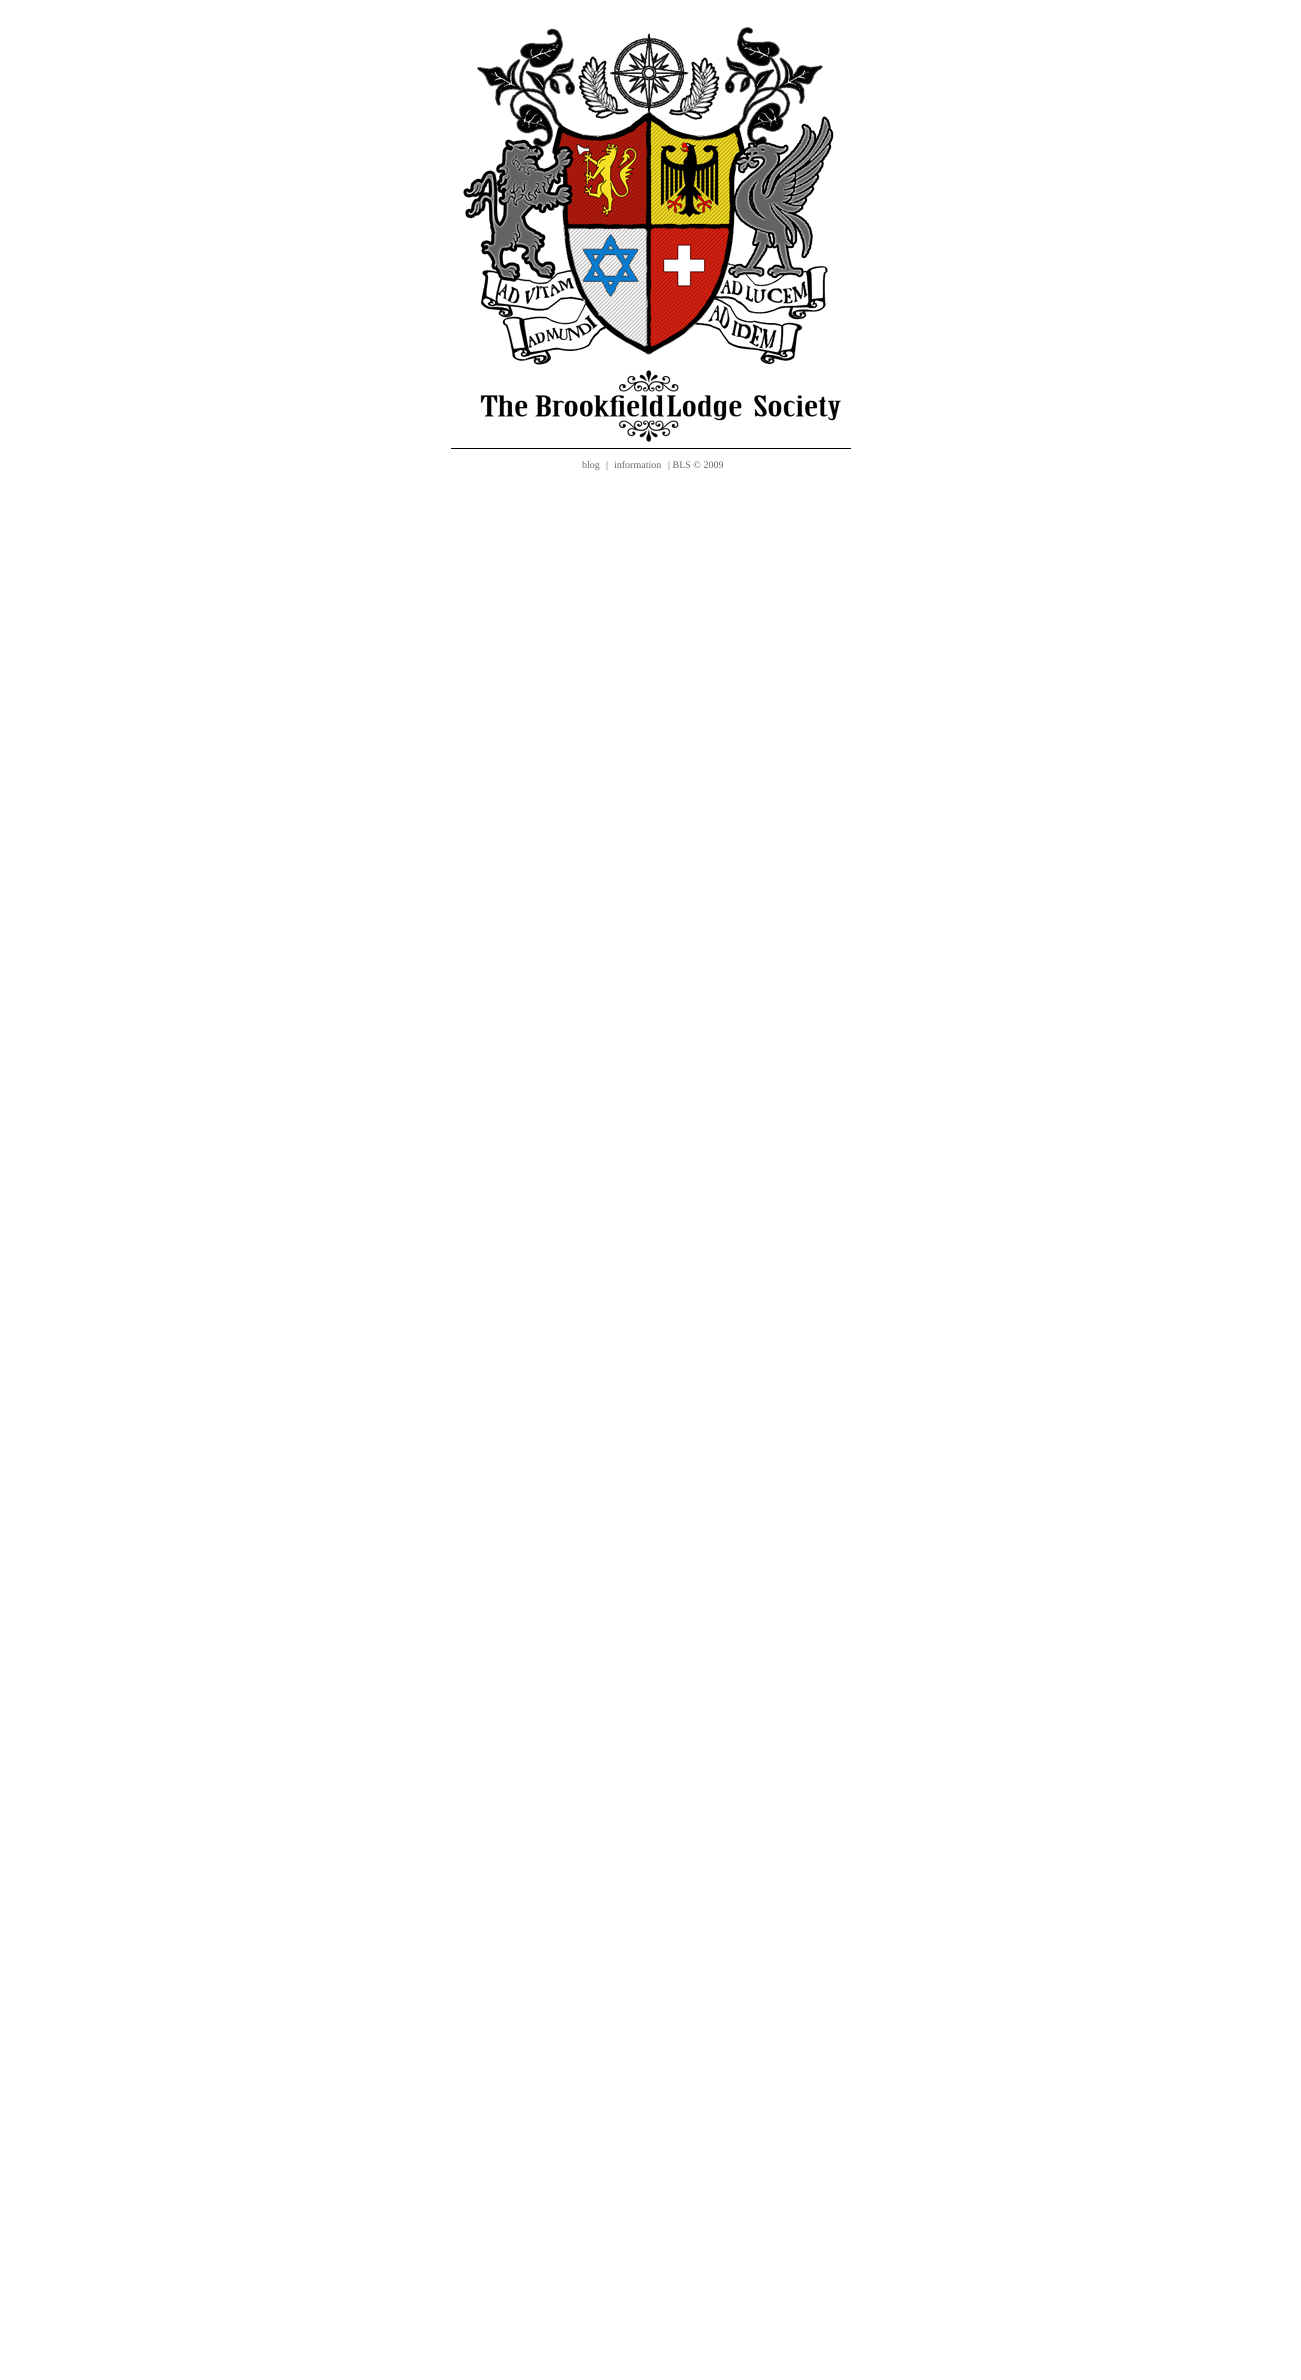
import math
import cairo

surface = cairo.ImageSurface(cairo.FORMAT_RGB24, 1301, 2380)
ctx = cairo.Context(surface)
options = cairo.FontOptions()
options.set_hint_metrics(cairo.HINT_METRICS_OFF)
options.set_hint_style(cairo.HINT_STYLE_NONE)
ctx.set_font_options(options)
ctx.set_miter_limit(4)


def set_color(code):
    ctx.set_source_rgb(*(v / 255 for v in bytes.fromhex(code[-6:])))


def draw_text(x, y, s, family, size, color, bold=False, italic=False):
    ctx.select_font_face(family, cairo.FONT_SLANT_ITALIC if italic else cairo.FONT_SLANT_NORMAL, cairo.FONT_WEIGHT_BOLD if bold else cairo.FONT_WEIGHT_NORMAL)
    ctx.set_font_size(size)
    set_color(color)
    ctx.move_to(x, y)
    ctx.show_text(s)


def fill_rect(x, y, w, h, color):
    set_color(color)
    ctx.rectangle(x, y, w, h)
    ctx.fill()


def draw_image(path, x, y, w, h):
    ctx.save()
    ctx.set_source_surface(cairo.ImageSurface.create_from_png(path), x, y)
    ctx.rectangle(x, y, w, h)
    ctx.fill()
    ctx.restore()


set_color("#ffffff")
ctx.paint()
fill_rect(451, 448, 400, 1, "#000000")
draw_image("assets/img1.png", 463, 27, 378, 415)
draw_text(582, 468, "blog", "Liberation Serif", 10, "#666666")
draw_text(606, 468, "|", "Liberation Serif", 10, "#666666")
draw_text(614, 468, "information", "Liberation Serif", 10, "#666666")
draw_text(668, 468, "| BLS © 2009", "Liberation Serif", 10, "#666666")
surface.write_to_png("output.png")
